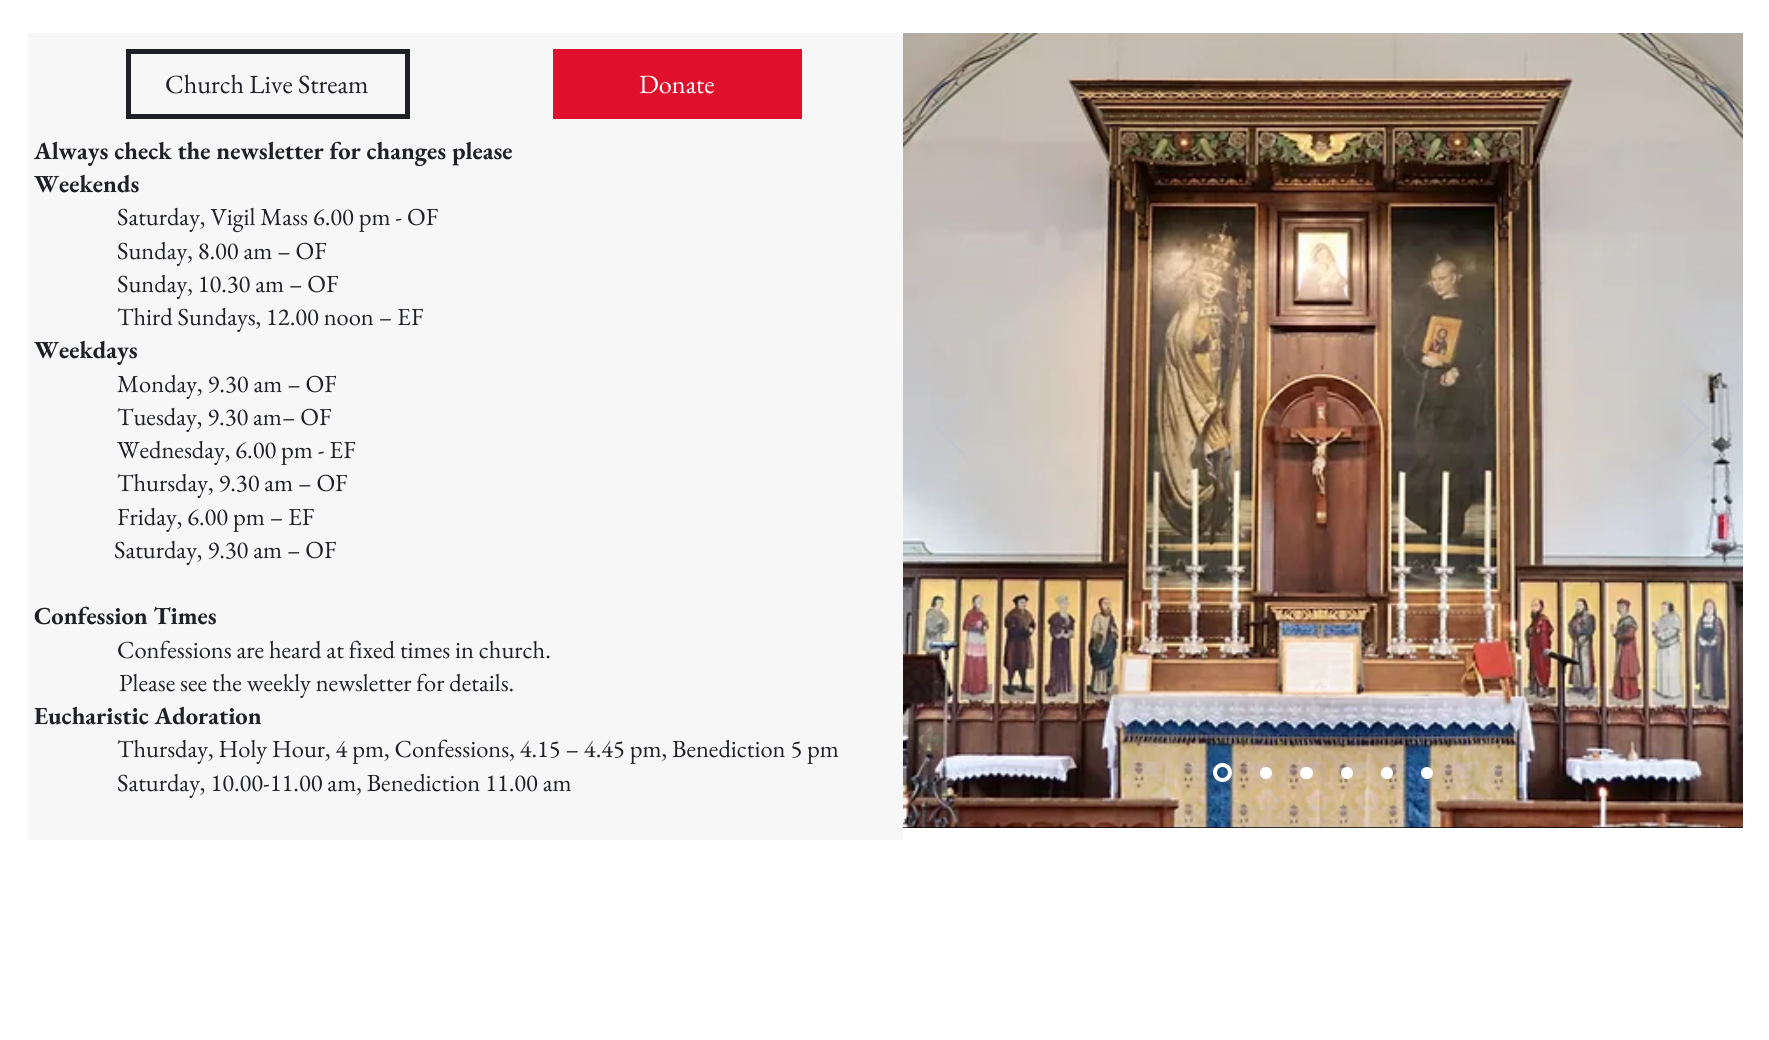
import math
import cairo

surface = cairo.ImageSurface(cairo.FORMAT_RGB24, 1769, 1040)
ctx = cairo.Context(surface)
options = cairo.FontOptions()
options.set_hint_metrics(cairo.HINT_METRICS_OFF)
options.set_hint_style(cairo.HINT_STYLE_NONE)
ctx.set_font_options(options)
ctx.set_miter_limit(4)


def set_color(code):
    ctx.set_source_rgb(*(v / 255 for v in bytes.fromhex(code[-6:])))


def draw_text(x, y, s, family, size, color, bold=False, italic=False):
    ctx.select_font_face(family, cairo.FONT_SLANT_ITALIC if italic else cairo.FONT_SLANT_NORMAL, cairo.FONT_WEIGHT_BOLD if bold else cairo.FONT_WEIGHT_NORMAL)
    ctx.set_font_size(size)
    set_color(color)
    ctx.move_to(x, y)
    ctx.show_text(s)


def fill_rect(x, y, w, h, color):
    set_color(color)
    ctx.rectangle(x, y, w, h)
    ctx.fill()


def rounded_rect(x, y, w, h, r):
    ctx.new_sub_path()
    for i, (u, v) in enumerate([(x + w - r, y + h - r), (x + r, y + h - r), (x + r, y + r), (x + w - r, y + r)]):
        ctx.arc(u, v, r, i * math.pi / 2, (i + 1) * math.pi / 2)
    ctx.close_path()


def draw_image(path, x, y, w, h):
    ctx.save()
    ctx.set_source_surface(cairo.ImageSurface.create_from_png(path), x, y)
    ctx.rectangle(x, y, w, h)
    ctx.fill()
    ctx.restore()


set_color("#ffffff")
ctx.paint()
fill_rect(28, 33, 875, 807, "#f7f7f7")
ctx.rectangle(128.5, 51.5, 279, 65)
set_color("#1e2025")
ctx.set_line_width(5)
ctx.stroke()
draw_text(165, 93, "Church Live Stream", "EB Garamond", 26.25, "#1e2025")
fill_rect(553, 49, 249, 70, "#e0102c")
draw_text(639, 93, "Donate", "EB Garamond", 26.25, "#ffffff")
draw_text(34, 159, "Always check the newsletter for changes please", "EB Garamond", 24.5, "#1e2025", bold=True)
draw_text(34, 192, "Weekends", "EB Garamond", 24.5, "#1e2025", bold=True)
draw_text(117, 225, "Saturday, Vigil Mass 6.00 pm - OF", "EB Garamond", 24.5, "#1e2025")
draw_text(117, 259, "Sunday, 8.00 am – OF", "EB Garamond", 24.5, "#1e2025")
draw_text(117, 292, "Sunday, 10.30 am – OF", "EB Garamond", 24.5, "#1e2025")
draw_text(117, 325, "Third Sundays, 12.00 noon – EF", "EB Garamond", 24.5, "#1e2025")
draw_text(34, 358, "Weekdays", "EB Garamond", 24.5, "#1e2025", bold=True)
draw_text(117, 392, "Monday, 9.30 am – OF", "EB Garamond", 24.5, "#1e2025")
draw_text(117, 425, "Tuesday, 9.30 am– OF", "EB Garamond", 24.5, "#1e2025")
draw_text(117, 458, "Wednesday, 6.00 pm - EF", "EB Garamond", 24.5, "#1e2025")
draw_text(117, 491, "Thursday, 9.30 am – OF", "EB Garamond", 24.5, "#1e2025")
draw_text(117, 525, "Friday, 6.00 pm – EF", "EB Garamond", 24.5, "#1e2025")
draw_text(114, 558, "Saturday, 9.30 am – OF", "EB Garamond", 24.5, "#1e2025")
draw_text(34, 624, "Confession Times", "EB Garamond", 24.5, "#1e2025", bold=True)
draw_text(117, 658, "Confessions are heard at fixed times in church.", "EB Garamond", 24.5, "#1e2025")
draw_text(119, 691, "Please see the weekly newsletter for details.", "EB Garamond", 24.5, "#1e2025")
draw_text(34, 724, "Eucharistic Adoration", "EB Garamond", 24.5, "#1e2025", bold=True)
draw_text(117, 757, "Thursday, Holy Hour, 4 pm, Confessions, 4.15 – 4.45 pm, Benediction 5 pm", "EB Garamond", 24.5, "#1e2025")
draw_text(117, 791, "Saturday, 10.00-11.00 am, Benediction 11.00 am", "EB Garamond", 24.5, "#1e2025")
fill_rect(903, 827, 840, 1, "#000000")
draw_image("assets/img1.png", 903, 33, 840, 795)
ctx.save()
ctx.rectangle(936, 397, 30, 62)
ctx.clip()
ctx.new_path()
ctx.move_to(966.5, 458.5)
ctx.line_to(936, 428)
ctx.line_to(966.5, 397.5)
ctx.line_to(967.5, 398.5)
ctx.line_to(938, 428)
ctx.line_to(967.5, 457.5)
ctx.close_path()
set_color("#c2c5cd")
ctx.set_line_width(1.5)
ctx.stroke()
ctx.restore()
ctx.save()
ctx.rectangle(1678, 397, 32, 62)
ctx.clip()
ctx.new_path()
ctx.move_to(1677.5, 458.5)
ctx.line_to(1708, 428)
ctx.line_to(1677.5, 397.5)
ctx.line_to(1676.5, 398.5)
ctx.line_to(1706, 428)
ctx.line_to(1676.5, 457.5)
ctx.close_path()
set_color("#c2c5cd")
ctx.set_line_width(1.5)
ctx.stroke()
ctx.restore()
ctx.arc(1222.5, 772.5, 7.5, 0, 2 * math.pi)
set_color("#ffffff")
ctx.set_line_width(4)
ctx.stroke()
ctx.arc(1266, 773, 6, 0, 2 * math.pi)
ctx.fill()
rounded_rect(1300, 767, 13, 12, 6)
ctx.fill()
ctx.arc(1347, 773, 6, 0, 2 * math.pi)
ctx.fill()
ctx.arc(1387, 773, 6, 0, 2 * math.pi)
ctx.fill()
ctx.arc(1427, 773, 6, 0, 2 * math.pi)
ctx.fill()
surface.write_to_png("output.png")
